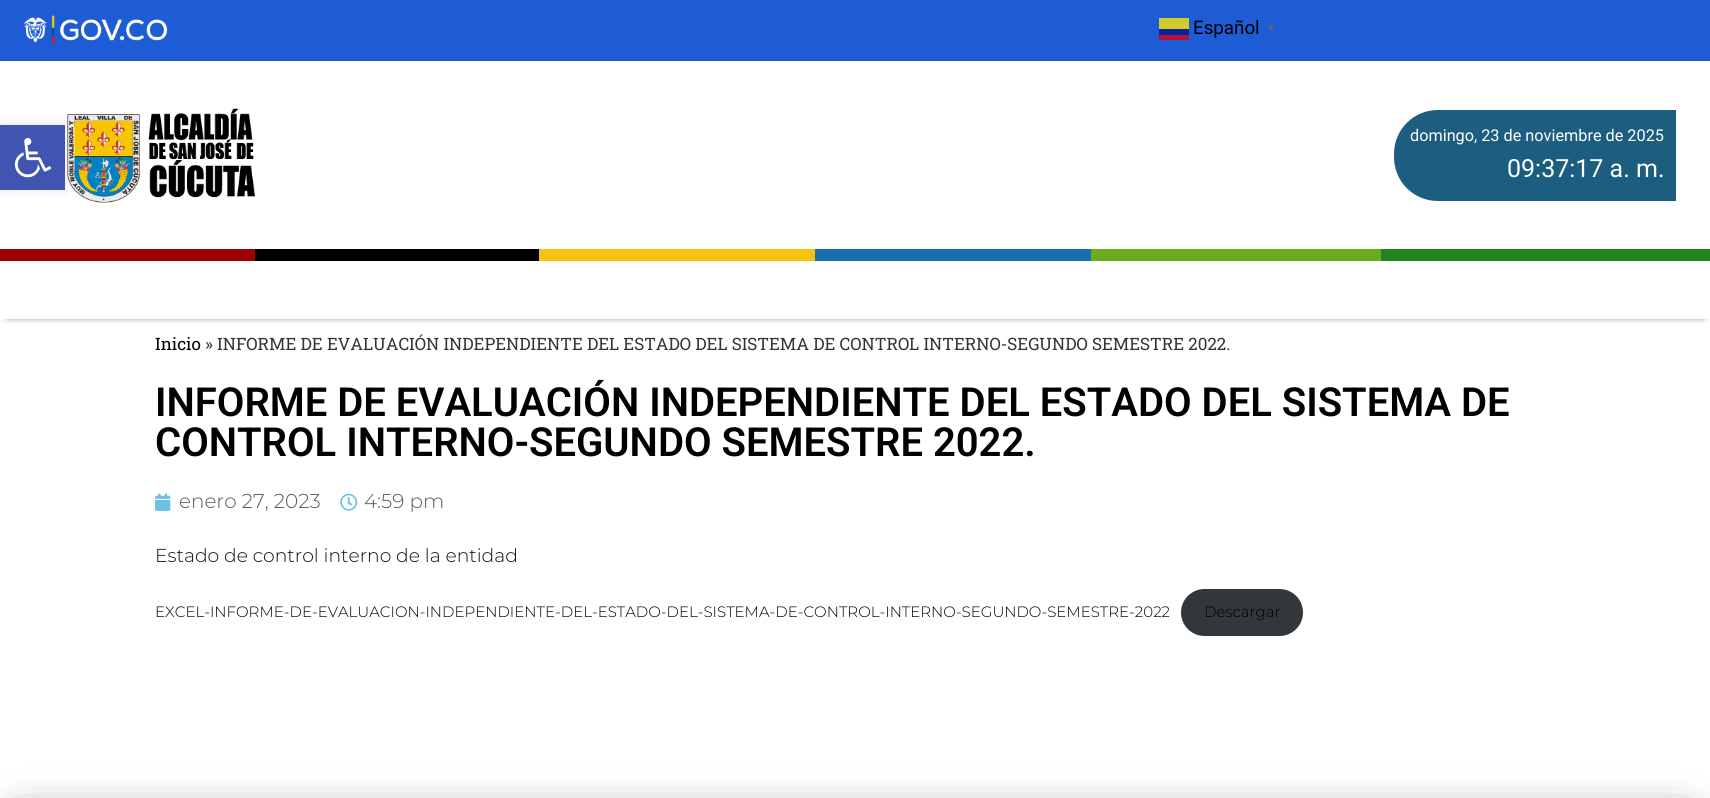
import math
import cairo

surface = cairo.ImageSurface(cairo.FORMAT_RGB24, 1710, 798)
ctx = cairo.Context(surface)
options = cairo.FontOptions()
options.set_hint_metrics(cairo.HINT_METRICS_OFF)
options.set_hint_style(cairo.HINT_STYLE_NONE)
ctx.set_font_options(options)
ctx.set_miter_limit(4)


def set_color(code):
    ctx.set_source_rgb(*(v / 255 for v in bytes.fromhex(code[-6:])))


def draw_text(x, y, s, family, size, color, bold=False, italic=False):
    ctx.select_font_face(family, cairo.FONT_SLANT_ITALIC if italic else cairo.FONT_SLANT_NORMAL, cairo.FONT_WEIGHT_BOLD if bold else cairo.FONT_WEIGHT_NORMAL)
    ctx.set_font_size(size)
    set_color(color)
    ctx.move_to(x, y)
    ctx.show_text(s)


def fill_rect(x, y, w, h, color):
    set_color(color)
    ctx.rectangle(x, y, w, h)
    ctx.fill()


def rounded_rect(x, y, w, h, r):
    ctx.new_sub_path()
    for i, (u, v) in enumerate([(x + w - r, y + h - r), (x + r, y + h - r), (x + r, y + r), (x + w - r, y + r)]):
        ctx.arc(u, v, r, i * math.pi / 2, (i + 1) * math.pi / 2)
    ctx.close_path()


def draw_shadow(x, y, w, h, r, blur, alpha):
    ctx.push_group_with_content(cairo.CONTENT_ALPHA)
    ctx.set_operator(cairo.OPERATOR_SOURCE)
    for i in range(15, -16, -2):
        e = blur * i / 6
        if min(w, h) + 2 * e > 0:
            ctx.set_source_rgba(0, 0, 0, alpha * math.erfc((i - 1) / 8.5) / 2)
            rounded_rect(x - e, y - e, w + 2 * e, h + 2 * e, max(0, min(r + e + blur * .6, min(w, h) / 2 + e)))
            ctx.fill()
    ctx.mask(ctx.pop_group())


def draw_image(path, x, y, w, h):
    ctx.save()
    ctx.set_source_surface(cairo.ImageSurface.create_from_png(path), x, y)
    ctx.rectangle(x, y, w, h)
    ctx.fill()
    ctx.restore()


set_color("#ffffff")
ctx.paint()
draw_image("assets/img3.png", 67, 108, 188, 95)
set_color("#000000")
draw_shadow(0, 125, 65, 65, 0, 6, 0.1)
fill_rect(0, 125, 65, 65, "#4054b2")
draw_image("assets/img1.png", 14, 138, 38, 40)
fill_rect(0, 0, 1710, 61, "#1e5cd6")
draw_image("assets/img2.png", 24, 15, 144, 30)
draw_text(1193, 34, "Español", "Roboto", 18.75, "#000000")
fill_rect(1159, 18, 30, 11, "#d2cc2b")
fill_rect(1159, 29, 30, 6, "#06229c")
fill_rect(1159, 35, 30, 5, "#b41238")
draw_text(1266, 31, "▼", "Liberation Sans", 10, "#666666", bold=True)
set_color("#1d5d7f")
ctx.new_path()
ctx.move_to(1438, 110)
ctx.line_to(1676, 110)
ctx.line_to(1676, 201)
ctx.line_to(1438, 201)
ctx.curve_to(1413.5, 201, 1394, 181.5, 1394, 157)
ctx.line_to(1394, 154)
ctx.curve_to(1394, 129.5, 1413.5, 110, 1438, 110)
ctx.close_path()
ctx.fill()
draw_text(1410, 141, "domingo, 23 de noviembre de 2025", "Roboto", 16.25, "#ffffff")
draw_text(1507, 177, "09:37:17 a. m.", "Roboto", 25, "#ffffff")
ctx.save()
ctx.set_fill_rule(cairo.FILL_RULE_EVEN_ODD)
ctx.new_path()
ctx.move_to(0, 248)
ctx.line_to(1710, 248)
ctx.line_to(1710, 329)
ctx.line_to(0, 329)
ctx.close_path()
ctx.move_to(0, 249)
ctx.line_to(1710, 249)
ctx.line_to(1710, 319)
ctx.line_to(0, 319)
ctx.close_path()
ctx.clip()
set_color("#222222")
draw_shadow(8, 261, 1695, 55, 0, 4, 1)
ctx.restore()
fill_rect(0, 249, 255, 12, "#9d0000")
fill_rect(255, 249, 284, 12, "#000000")
fill_rect(539, 249, 276, 12, "#f6c30f")
fill_rect(815, 249, 276, 12, "#196fad")
fill_rect(1091, 249, 290, 12, "#6bab1e")
fill_rect(1381, 249, 329, 12, "#23831e")
draw_text(155, 350, "Inicio", "Roboto Slab", 17, "#000000")
draw_text(205, 350, "» INFORME DE EVALUACIÓN INDEPENDIENTE DEL ESTADO DEL SISTEMA DE CONTROL INTERNO-SEGUNDO SEMESTRE 2022.", "Roboto Slab", 17, "#333333")
draw_text(155, 416, "INFORME DE EVALUACIÓN INDEPENDIENTE DEL ESTADO DEL SISTEMA DE", "Roboto SemiBold", 40, "#000000")
draw_text(155, 456, "CONTROL INTERNO-SEGUNDO SEMESTRE 2022.", "Roboto SemiBold", 40, "#000000")
draw_image("assets/img4.png", 155, 493, 16, 18)
draw_text(179, 508, "enero 27, 2023", "Montserrat Light", 20, "#54595f")
draw_image("assets/img5.png", 340, 493, 18, 18)
draw_text(364, 508, "4:59 pm", "Montserrat Light", 20, "#54595f")
draw_text(155, 562, "Estado de control interno de la entidad", "Montserrat Light", 18.75, "#0f0f0f")
draw_text(155, 617, "EXCEL-INFORME-DE-EVALUACION-INDEPENDIENTE-DEL-ESTADO-DEL-SISTEMA-DE-CONTROL-INTERNO-SEGUNDO-SEMESTRE-2022", "Montserrat Light", 15, "#000000")
set_color("#32373c")
rounded_rect(1181, 589, 122, 47, 23.5)
ctx.fill()
draw_text(1204, 617, "Descargar", "Montserrat Light", 15, "#000000")
set_color("#000000")
draw_shadow(0, 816, 1705, 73, 31, 20, 0.5)
surface.write_to_png("output.png")
